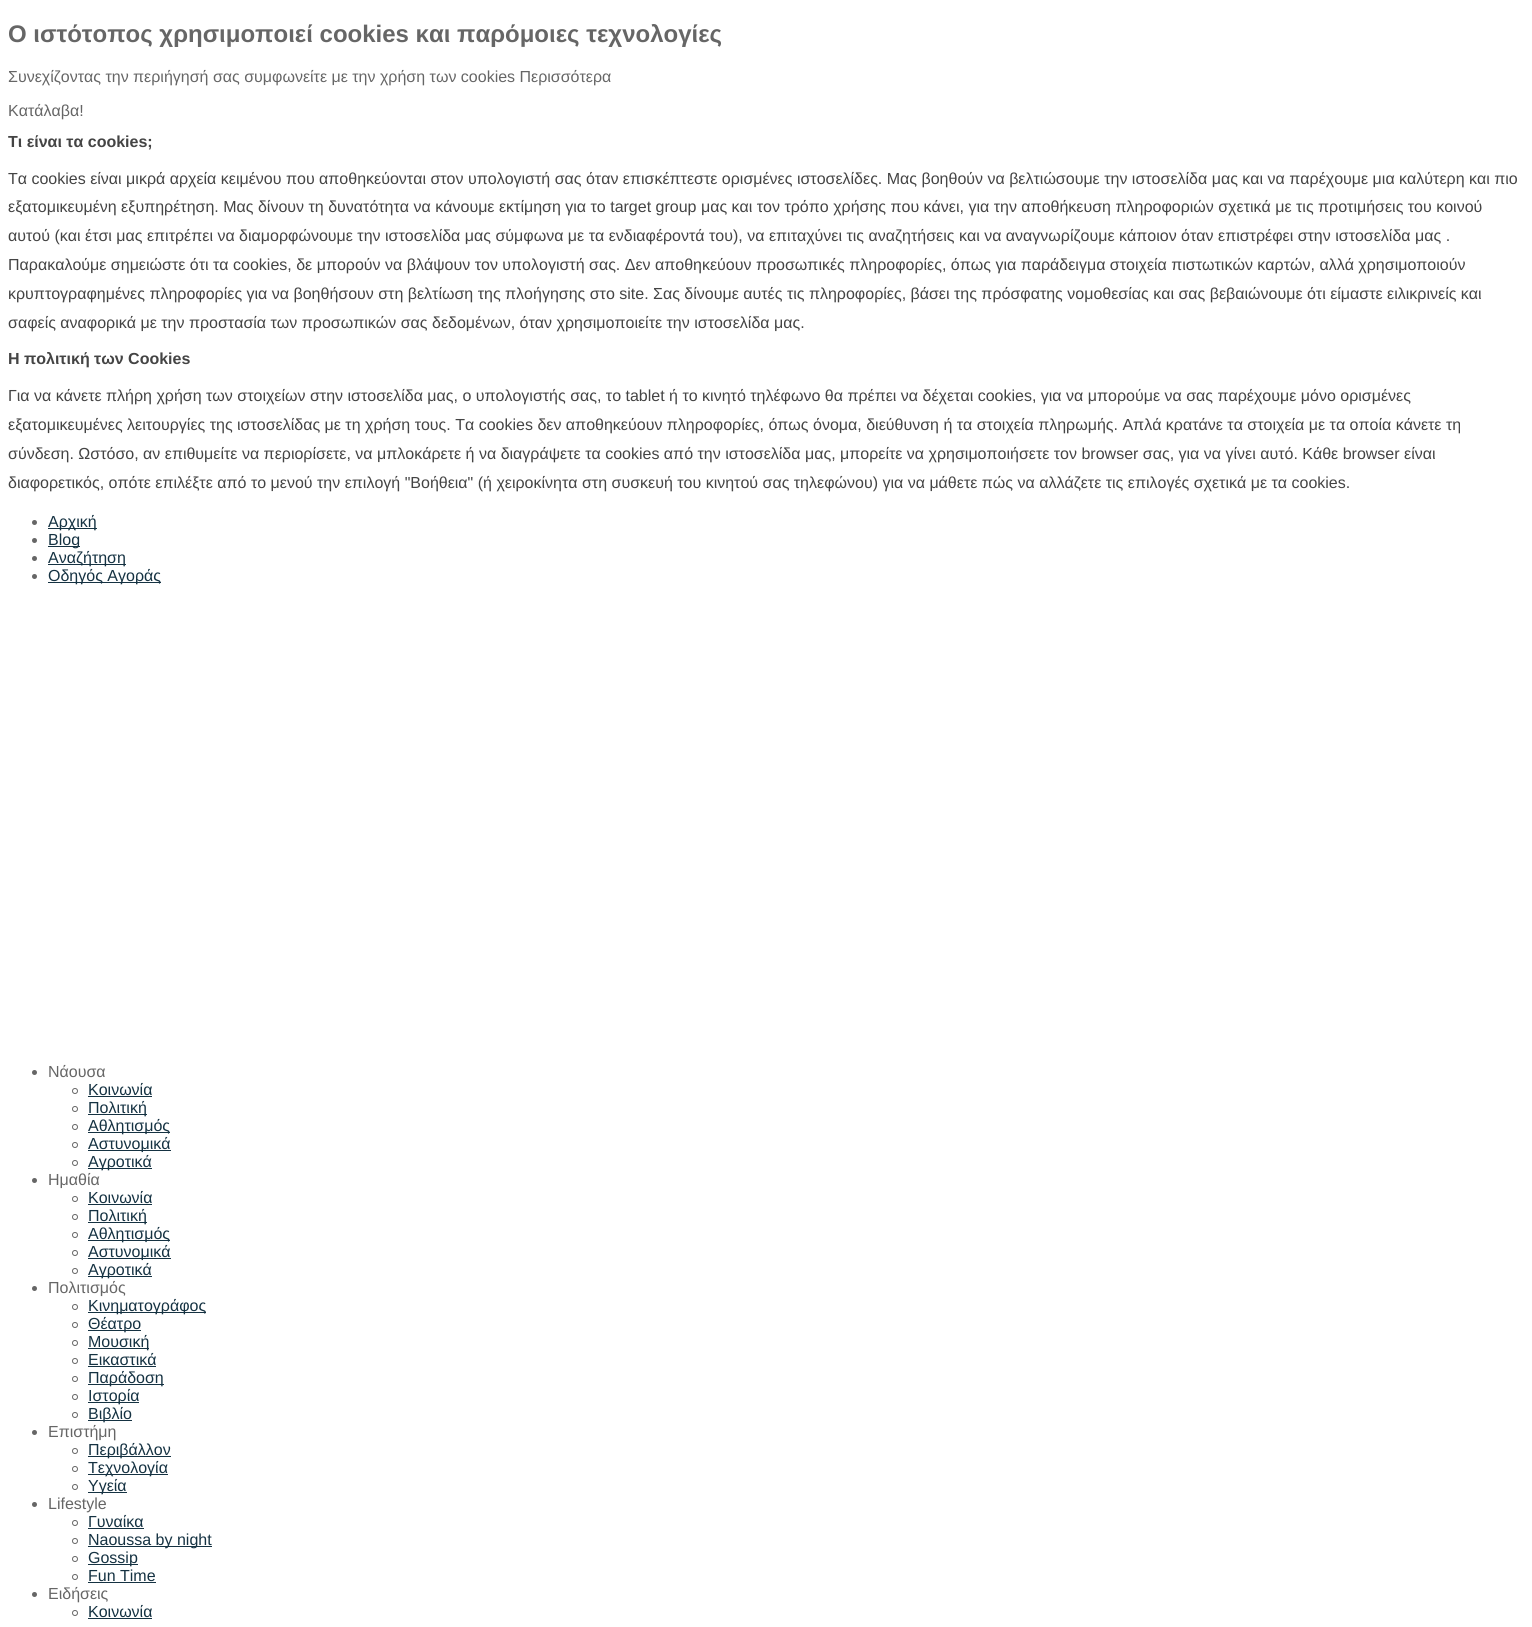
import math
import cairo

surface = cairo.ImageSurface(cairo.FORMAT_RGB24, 1532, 1627)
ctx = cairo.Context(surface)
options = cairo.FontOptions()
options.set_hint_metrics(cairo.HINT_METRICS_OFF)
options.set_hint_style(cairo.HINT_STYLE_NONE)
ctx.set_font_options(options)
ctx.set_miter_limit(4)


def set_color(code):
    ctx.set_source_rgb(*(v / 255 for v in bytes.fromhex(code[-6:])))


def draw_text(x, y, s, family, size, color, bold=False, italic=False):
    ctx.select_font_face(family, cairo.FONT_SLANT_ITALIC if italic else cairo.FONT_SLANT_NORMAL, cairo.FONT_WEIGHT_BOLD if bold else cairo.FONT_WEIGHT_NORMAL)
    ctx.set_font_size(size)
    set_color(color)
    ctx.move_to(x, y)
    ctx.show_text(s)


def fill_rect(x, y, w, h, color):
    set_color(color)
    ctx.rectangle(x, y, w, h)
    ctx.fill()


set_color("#ffffff")
ctx.paint()
draw_text(8, 42, "Ο ιστότοπος χρησιμοποιεί cookies και παρόμοιες τεχνολογίες", "Liberation Sans", 24, "#666666", bold=True)
draw_text(8, 82, "Συνεχίζοντας την περιήγησή σας συμφωνείτε με την χρήση των cookies Περισσότερα", "Liberation Sans", 16, "#666666")
draw_text(8, 116, "Κατάλαβα!", "Liberation Sans", 16, "#666666")
draw_text(8, 147, "Τι είναι τα cookies;", "Liberation Sans", 16, "#444444", bold=True)
draw_text(8, 184, "Τα cookies είναι μικρά αρχεία κειμένου που αποθηκεύονται στον υπολογιστή σας όταν επισκέπτεστε ορισμένες ιστοσελίδες. Μας βοηθούν να βελτιώσουμε την ιστοσελίδα μας και να παρέχουμε μια καλύτερη και πιο", "Liberation Sans", 16, "#444444")
draw_text(8, 212, "εξατομικευμένη εξυπηρέτηση. Μας δίνουν τη δυνατότητα να κάνουμε εκτίμηση για το target group μας και τον τρόπο χρήσης που κάνει, για την αποθήκευση πληροφοριών σχετικά με τις προτιμήσεις του κοινού", "Liberation Sans", 16, "#444444")
draw_text(8, 241, "αυτού (και έτσι μας επιτρέπει να διαμορφώνουμε την ιστοσελίδα μας σύμφωνα με τα ενδιαφέροντά του), να επιταχύνει τις αναζητήσεις και να αναγνωρίζουμε κάποιον όταν επιστρέφει στην ιστοσελίδα μας .", "Liberation Sans", 16, "#444444")
draw_text(8, 270, "Παρακαλούμε σημειώστε ότι τα cookies, δε μπορούν να βλάψουν τον υπολογιστή σας. Δεν αποθηκεύουν προσωπικές πληροφορίες, όπως για παράδειγμα στοιχεία πιστωτικών καρτών, αλλά χρησιμοποιούν", "Liberation Sans", 16, "#444444")
draw_text(8, 299, "κρυπτογραφημένες πληροφορίες για να βοηθήσουν στη βελτίωση της πλοήγησης στο site. Σας δίνουμε αυτές τις πληροφορίες, βάσει της πρόσφατης νομοθεσίας και σας βεβαιώνουμε ότι είμαστε ειλικρινείς και", "Liberation Sans", 16, "#444444")
draw_text(8, 328, "σαφείς αναφορικά με την προστασία των προσωπικών σας δεδομένων, όταν χρησιμοποιείτε την ιστοσελίδα μας.", "Liberation Sans", 16, "#444444")
draw_text(8, 364, "H πολιτική των Cookies", "Liberation Sans", 16, "#444444", bold=True)
draw_text(8, 401, "Για να κάνετε πλήρη χρήση των στοιχείων στην ιστοσελίδα μας, ο υπολογιστής σας, το tablet ή το κινητό τηλέφωνο θα πρέπει να δέχεται cookies, για να μπορούμε να σας παρέχουμε μόνο ορισμένες", "Liberation Sans", 16, "#444444")
draw_text(8, 430, "εξατομικευμένες λειτουργίες της ιστοσελίδας με τη χρήση τους. Τα cookies δεν αποθηκεύουν πληροφορίες, όπως όνομα, διεύθυνση ή τα στοιχεία πληρωμής. Απλά κρατάνε τα στοιχεία με τα οποία κάνετε τη", "Liberation Sans", 16, "#444444")
draw_text(8, 459, "σύνδεση. Ωστόσο, αν επιθυμείτε να περιορίσετε, να μπλοκάρετε ή να διαγράψετε τα cookies από την ιστοσελίδα μας, μπορείτε να χρησιμοποιήσετε τον browser σας, για να γίνει αυτό. Κάθε browser είναι", "Liberation Sans", 16, "#444444")
draw_text(8, 488, "διαφορετικός, οπότε επιλέξτε από το μενού την επιλογή \"Βοήθεια\" (ή χειροκίνητα στη συσκευή του κινητού σας τηλεφώνου) για να μάθετε πώς να αλλάζετε τις επιλογές σχετικά με τα cookies.", "Liberation Sans", 16, "#444444")
set_color("#666666")
ctx.new_path()
ctx.arc(34.5, 522.5, 2.5, 0, 2 * math.pi)
ctx.fill()
fill_rect(48, 528, 49, 1, "#153242")
draw_text(48, 527, "Αρχική", "Liberation Sans", 16, "#153242")
set_color("#666666")
ctx.new_path()
ctx.arc(34.5, 540.5, 2.5, 0, 2 * math.pi)
ctx.fill()
fill_rect(48, 546, 32, 1, "#153242")
draw_text(48, 545, "Blog", "Liberation Sans", 16, "#153242")
set_color("#666666")
ctx.new_path()
ctx.arc(34.5, 558.5, 2.5, 0, 2 * math.pi)
ctx.fill()
fill_rect(48, 564, 78, 1, "#153242")
draw_text(48, 563, "Αναζήτηση", "Liberation Sans", 16, "#153242")
set_color("#666666")
ctx.new_path()
ctx.arc(34.5, 576.5, 2.5, 0, 2 * math.pi)
ctx.fill()
fill_rect(48, 582, 113, 1, "#153242")
draw_text(48, 581, "Οδηγός Αγοράς", "Liberation Sans", 16, "#153242")
set_color("#666666")
ctx.new_path()
ctx.arc(34.5, 1072.5, 2.5, 0, 2 * math.pi)
ctx.fill()
draw_text(48, 1077, "Νάουσα", "Liberation Sans", 16, "#666666")
ctx.new_path()
ctx.arc(75, 1091, 2.5, 0, 2 * math.pi)
ctx.set_line_width(1)
ctx.stroke()
draw_text(88, 1095, "Κοινωνία", "Liberation Sans", 16, "#153242")
fill_rect(88, 1096, 64, 1, "#153242")
ctx.new_path()
ctx.arc(75, 1109, 2.5, 0, 2 * math.pi)
set_color("#666666")
ctx.stroke()
fill_rect(88, 1114, 59, 1, "#153242")
draw_text(88, 1113, "Πολιτική", "Liberation Sans", 16, "#153242")
ctx.new_path()
ctx.arc(75, 1127, 2.5, 0, 2 * math.pi)
set_color("#666666")
ctx.stroke()
fill_rect(88, 1132, 82, 1, "#153242")
draw_text(88, 1131, "Αθλητισμός", "Liberation Sans", 16, "#153242")
ctx.new_path()
ctx.arc(75, 1145, 2.5, 0, 2 * math.pi)
set_color("#666666")
ctx.stroke()
fill_rect(88, 1150, 83, 1, "#153242")
draw_text(88, 1149, "Αστυνομικά", "Liberation Sans", 16, "#153242")
ctx.new_path()
ctx.arc(75, 1163, 2.5, 0, 2 * math.pi)
set_color("#666666")
ctx.stroke()
fill_rect(88, 1168, 64, 1, "#153242")
draw_text(88, 1167, "Αγροτικά", "Liberation Sans", 16, "#153242")
set_color("#666666")
ctx.new_path()
ctx.arc(34.5, 1180.5, 2.5, 0, 2 * math.pi)
ctx.fill()
draw_text(48, 1185, "Ημαθία", "Liberation Sans", 16, "#666666")
ctx.new_path()
ctx.arc(75, 1199, 2.5, 0, 2 * math.pi)
ctx.stroke()
draw_text(88, 1203, "Κοινωνία", "Liberation Sans", 16, "#153242")
fill_rect(88, 1204, 64, 1, "#153242")
ctx.new_path()
ctx.arc(75, 1217, 2.5, 0, 2 * math.pi)
set_color("#666666")
ctx.stroke()
fill_rect(88, 1222, 59, 1, "#153242")
draw_text(88, 1221, "Πολιτική", "Liberation Sans", 16, "#153242")
ctx.new_path()
ctx.arc(75, 1235, 2.5, 0, 2 * math.pi)
set_color("#666666")
ctx.stroke()
fill_rect(88, 1240, 82, 1, "#153242")
draw_text(88, 1239, "Αθλητισμός", "Liberation Sans", 16, "#153242")
ctx.new_path()
ctx.arc(75, 1253, 2.5, 0, 2 * math.pi)
set_color("#666666")
ctx.stroke()
fill_rect(88, 1258, 83, 1, "#153242")
draw_text(88, 1257, "Αστυνομικά", "Liberation Sans", 16, "#153242")
ctx.new_path()
ctx.arc(75, 1271, 2.5, 0, 2 * math.pi)
set_color("#666666")
ctx.stroke()
fill_rect(88, 1276, 64, 1, "#153242")
draw_text(88, 1275, "Αγροτικά", "Liberation Sans", 16, "#153242")
set_color("#666666")
ctx.new_path()
ctx.arc(34.5, 1288.5, 2.5, 0, 2 * math.pi)
ctx.fill()
draw_text(48, 1293, "Πολιτισμός", "Liberation Sans", 16, "#666666")
ctx.new_path()
ctx.arc(75, 1307, 2.5, 0, 2 * math.pi)
ctx.stroke()
fill_rect(88, 1312, 118, 1, "#153242")
draw_text(88, 1311, "Κινηματογράφος", "Liberation Sans", 16, "#153242")
ctx.new_path()
ctx.arc(75, 1325, 2.5, 0, 2 * math.pi)
set_color("#666666")
ctx.stroke()
fill_rect(88, 1330, 53, 1, "#153242")
draw_text(88, 1329, "Θέατρο", "Liberation Sans", 16, "#153242")
ctx.new_path()
ctx.arc(75, 1343, 2.5, 0, 2 * math.pi)
set_color("#666666")
ctx.stroke()
fill_rect(88, 1348, 61, 1, "#153242")
draw_text(88, 1347, "Μουσική", "Liberation Sans", 16, "#153242")
ctx.new_path()
ctx.arc(75, 1361, 2.5, 0, 2 * math.pi)
set_color("#666666")
ctx.stroke()
draw_text(88, 1365, "Εικαστικά", "Liberation Sans", 16, "#153242")
fill_rect(88, 1366, 68, 1, "#153242")
ctx.new_path()
ctx.arc(75, 1379, 2.5, 0, 2 * math.pi)
set_color("#666666")
ctx.stroke()
fill_rect(88, 1384, 76, 1, "#153242")
draw_text(88, 1383, "Παράδοση", "Liberation Sans", 16, "#153242")
ctx.new_path()
ctx.arc(75, 1397, 2.5, 0, 2 * math.pi)
set_color("#666666")
ctx.stroke()
fill_rect(88, 1402, 51, 1, "#153242")
draw_text(88, 1401, "Ιστορία", "Liberation Sans", 16, "#153242")
ctx.new_path()
ctx.arc(75, 1415, 2.5, 0, 2 * math.pi)
set_color("#666666")
ctx.stroke()
fill_rect(88, 1420, 44, 1, "#153242")
draw_text(88, 1419, "Βιβλίο", "Liberation Sans", 16, "#153242")
set_color("#666666")
ctx.new_path()
ctx.arc(34.5, 1432.5, 2.5, 0, 2 * math.pi)
ctx.fill()
draw_text(48, 1437, "Επιστήμη", "Liberation Sans", 16, "#666666")
ctx.new_path()
ctx.arc(75, 1451, 2.5, 0, 2 * math.pi)
ctx.stroke()
fill_rect(88, 1456, 83, 1, "#153242")
draw_text(88, 1455, "Περιβάλλον", "Liberation Sans", 16, "#153242")
ctx.new_path()
ctx.arc(75, 1469, 2.5, 0, 2 * math.pi)
set_color("#666666")
ctx.stroke()
fill_rect(88, 1474, 80, 1, "#153242")
draw_text(88, 1473, "Τεχνολογία", "Liberation Sans", 16, "#153242")
ctx.new_path()
ctx.arc(75, 1487, 2.5, 0, 2 * math.pi)
set_color("#666666")
ctx.stroke()
fill_rect(88, 1492, 39, 1, "#153242")
draw_text(88, 1491, "Υγεία", "Liberation Sans", 16, "#153242")
set_color("#666666")
ctx.new_path()
ctx.arc(34.5, 1504.5, 2.5, 0, 2 * math.pi)
ctx.fill()
draw_text(48, 1509, "Lifestyle", "Liberation Sans", 16, "#666666")
ctx.new_path()
ctx.arc(75, 1523, 2.5, 0, 2 * math.pi)
ctx.stroke()
draw_text(88, 1527, "Γυναίκα", "Liberation Sans", 16, "#153242")
fill_rect(88, 1528, 56, 1, "#153242")
ctx.new_path()
ctx.arc(75, 1541, 2.5, 0, 2 * math.pi)
set_color("#666666")
ctx.stroke()
fill_rect(88, 1546, 124, 1, "#153242")
draw_text(88, 1545, "Naoussa by night", "Liberation Sans", 16, "#153242")
ctx.new_path()
ctx.arc(75, 1559, 2.5, 0, 2 * math.pi)
set_color("#666666")
ctx.stroke()
fill_rect(88, 1564, 50, 1, "#153242")
draw_text(88, 1563, "Gossip", "Liberation Sans", 16, "#153242")
ctx.new_path()
ctx.arc(75, 1577, 2.5, 0, 2 * math.pi)
set_color("#666666")
ctx.stroke()
draw_text(88, 1581, "Fun Time", "Liberation Sans", 16, "#153242")
fill_rect(88, 1582, 68, 1, "#153242")
set_color("#666666")
ctx.new_path()
ctx.arc(34.5, 1594.5, 2.5, 0, 2 * math.pi)
ctx.fill()
draw_text(48, 1599, "Ειδήσεις", "Liberation Sans", 16, "#666666")
ctx.new_path()
ctx.arc(75, 1613, 2.5, 0, 2 * math.pi)
ctx.stroke()
draw_text(88, 1617, "Κοινωνία", "Liberation Sans", 16, "#153242")
fill_rect(88, 1618, 64, 1, "#153242")
surface.write_to_png("output.png")
